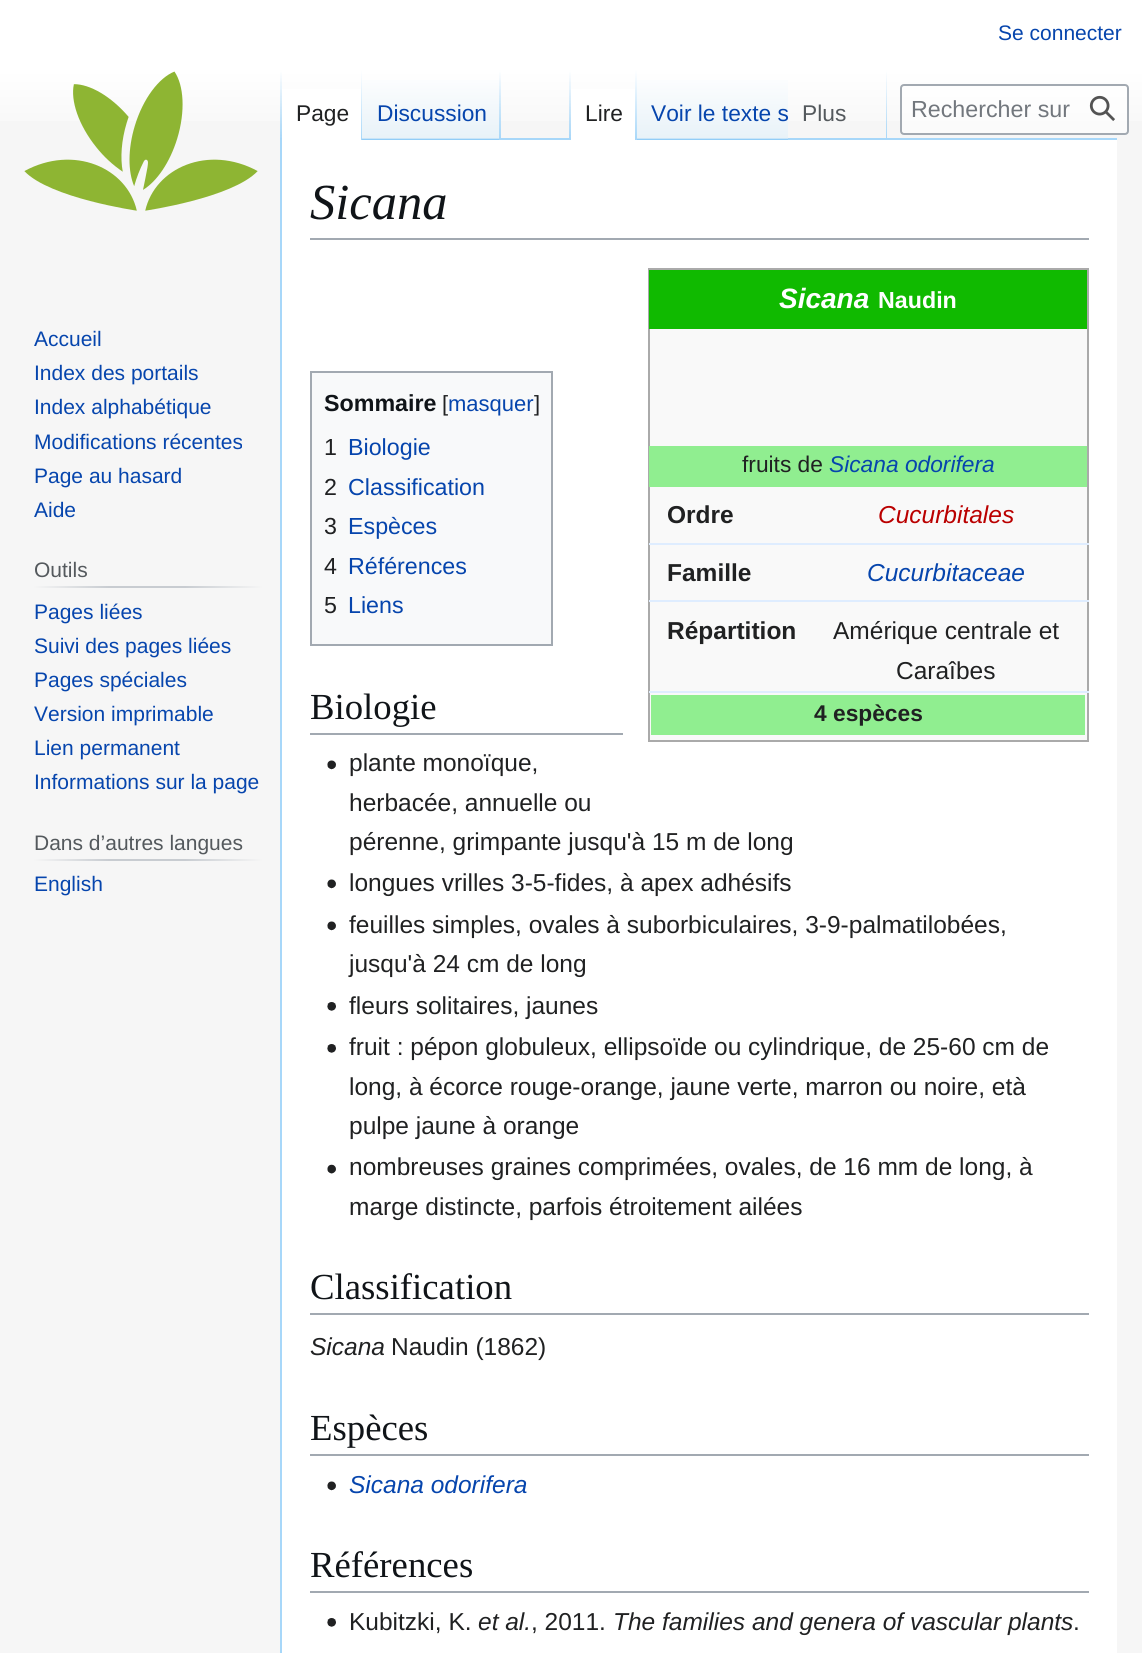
import math
import cairo

surface = cairo.ImageSurface(cairo.FORMAT_RGB24, 1142, 1653)
ctx = cairo.Context(surface)
options = cairo.FontOptions()
options.set_hint_metrics(cairo.HINT_METRICS_OFF)
options.set_hint_style(cairo.HINT_STYLE_NONE)
ctx.set_font_options(options)
ctx.set_miter_limit(4)


def set_color(code):
    ctx.set_source_rgb(*(v / 255 for v in bytes.fromhex(code[-6:])))


def draw_text(x, y, s, family, size, color, bold=False, italic=False):
    ctx.select_font_face(family, cairo.FONT_SLANT_ITALIC if italic else cairo.FONT_SLANT_NORMAL, cairo.FONT_WEIGHT_BOLD if bold else cairo.FONT_WEIGHT_NORMAL)
    ctx.set_font_size(size)
    set_color(color)
    ctx.move_to(x, y)
    ctx.show_text(s)


def fill_rect(x, y, w, h, color):
    set_color(color)
    ctx.rectangle(x, y, w, h)
    ctx.fill()


def rounded_rect(x, y, w, h, r):
    ctx.new_sub_path()
    for i, (u, v) in enumerate([(x + w - r, y + h - r), (x + r, y + h - r), (x + r, y + r), (x + w - r, y + r)]):
        ctx.arc(u, v, r, i * math.pi / 2, (i + 1) * math.pi / 2)
    ctx.close_path()


def draw_image(path, x, y, w, h):
    ctx.save()
    ctx.set_source_surface(cairo.ImageSurface.create_from_png(path), x, y)
    ctx.rectangle(x, y, w, h)
    ctx.fill()
    ctx.restore()


set_color("#f6f6f6")
ctx.paint()
gradient = cairo.LinearGradient(571, 0, 571, 140)
gradient.add_color_stop_rgba(0.5, 1, 1, 1, 1)
gradient.add_color_stop_rgba(1, 0.965, 0.965, 0.965, 1)
ctx.set_source(gradient)
ctx.rectangle(0, 0, 1142, 121)
ctx.fill()
draw_text(998, 40, "Se connecter", "Liberation Sans", 21, "#0645ad")
fill_rect(280, 138, 2, 1515, "#a7d7f9")
gradient = cairo.LinearGradient(281, 70, 281, 140)
gradient.add_color_stop_rgba(0, 0.655, 0.843, 0.976, 0)
gradient.add_color_stop_rgba(1, 0.655, 0.843, 0.976, 1)
ctx.set_source(gradient)
ctx.rectangle(280, 70, 2, 70)
ctx.fill()
fill_rect(282, 89, 79, 51, "#ffffff")
gradient = cairo.LinearGradient(361, 70, 361, 140)
gradient.add_color_stop_rgba(0, 1, 1, 1, 1)
gradient.add_color_stop_rgba(1, 0.655, 0.843, 0.976, 1)
ctx.set_source(gradient)
ctx.rectangle(361, 70, 1, 70)
ctx.fill()
draw_text(296, 121, "Page", "Liberation Sans", 22.75, "#202122")
gradient = cairo.LinearGradient(431, 140, 431, 70)
gradient.add_color_stop_rgba(0, 0.467, 0.757, 0.965, 1)
gradient.add_color_stop_rgba(0.03, 0.91, 0.949, 0.973, 1)
gradient.add_color_stop_rgba(1, 1, 1, 1, 1)
ctx.set_source(gradient)
ctx.rectangle(362, 80, 139, 60)
ctx.fill()
gradient = cairo.LinearGradient(500, 70, 500, 140)
gradient.add_color_stop_rgba(0, 0.655, 0.843, 0.976, 0)
gradient.add_color_stop_rgba(1, 0.655, 0.843, 0.976, 1)
ctx.set_source(gradient)
ctx.rectangle(499, 70, 2, 70)
ctx.fill()
draw_text(377, 121, "Discussion", "Liberation Sans", 22.75, "#0645ad")
fill_rect(501, 138, 616, 2, "#a7d7f9")
gradient = cairo.LinearGradient(570, 70, 570, 140)
gradient.add_color_stop_rgba(0, 0.655, 0.843, 0.976, 0)
gradient.add_color_stop_rgba(1, 0.655, 0.843, 0.976, 1)
ctx.set_source(gradient)
ctx.rectangle(569, 70, 2, 70)
ctx.fill()
fill_rect(571, 89, 64, 51, "#ffffff")
gradient = cairo.LinearGradient(636, 70, 636, 140)
gradient.add_color_stop_rgba(0, 1, 1, 1, 1)
gradient.add_color_stop_rgba(1, 0.655, 0.843, 0.976, 1)
ctx.set_source(gradient)
ctx.rectangle(635, 70, 2, 70)
ctx.fill()
draw_text(585, 121, "Lire", "Liberation Sans", 22.75, "#202122")
gradient = cairo.LinearGradient(712, 140, 712, 70)
gradient.add_color_stop_rgba(0, 0.467, 0.757, 0.965, 1)
gradient.add_color_stop_rgba(0.03, 0.91, 0.949, 0.973, 1)
gradient.add_color_stop_rgba(1, 1, 1, 1, 1)
ctx.set_source(gradient)
ctx.rectangle(637, 80, 151, 60)
ctx.fill()
draw_text(651, 121, "Voir le texte s", "Liberation Sans", 22.75, "#0645ad")
gradient = cairo.LinearGradient(886, 70, 886, 140)
gradient.add_color_stop_rgba(0, 0.655, 0.843, 0.976, 0)
gradient.add_color_stop_rgba(1, 0.655, 0.843, 0.976, 1)
ctx.set_source(gradient)
ctx.rectangle(886, 70, 1, 70)
ctx.fill()
draw_text(802, 121, "Plus", "Liberation Sans", 22.75, "#54595d")
ctx.set_source_rgba(1, 1, 1, 0.5)
rounded_rect(901, 85, 227, 49, 3)
ctx.fill_preserve()
set_color("#a2a9b1")
ctx.stroke()
draw_text(911, 117, "Rechercher sur", "Liberation Sans", 23.25, "#72777d")
draw_image("assets/img1.png", 1089, 95, 26, 26)
draw_image("assets/img2.png", 24, 71, 234, 140)
draw_text(34, 346, "Accueil", "Liberation Sans", 21, "#0645ad")
draw_text(34, 380, "Index des portails", "Liberation Sans", 21, "#0645ad")
draw_text(34, 414, "Index alphabétique", "Liberation Sans", 21, "#0645ad")
draw_text(34, 449, "Modifications récentes", "Liberation Sans", 21, "#0645ad")
draw_text(34, 483, "Page au hasard", "Liberation Sans", 21, "#0645ad")
draw_text(34, 517, "Aide", "Liberation Sans", 21, "#0645ad")
gradient = cairo.LinearGradient(33, 587, 263, 587)
gradient.add_color_stop_rgba(0, 0.965, 0.965, 0.965, 1)
gradient.add_color_stop_rgba(0.33, 0.784, 0.8, 0.82, 1)
gradient.add_color_stop_rgba(0.66, 0.784, 0.8, 0.82, 1)
gradient.add_color_stop_rgba(1, 0.965, 0.965, 0.965, 1)
ctx.set_source(gradient)
ctx.rectangle(33, 586, 230, 2)
ctx.fill()
draw_text(34, 577, "Outils", "Liberation Sans", 21, "#54595d")
draw_text(34, 619, "Pages liées", "Liberation Sans", 21, "#0645ad")
draw_text(34, 653, "Suivi des pages liées", "Liberation Sans", 21, "#0645ad")
draw_text(34, 687, "Pages spéciales", "Liberation Sans", 21, "#0645ad")
draw_text(34, 721, "Version imprimable", "Liberation Sans", 21, "#0645ad")
draw_text(34, 755, "Lien permanent", "Liberation Sans", 21, "#0645ad")
draw_text(34, 789, "Informations sur la page", "Liberation Sans", 21, "#0645ad")
gradient = cairo.LinearGradient(33, 860, 263, 860)
gradient.add_color_stop_rgba(0, 0.965, 0.965, 0.965, 1)
gradient.add_color_stop_rgba(0.33, 0.784, 0.8, 0.82, 1)
gradient.add_color_stop_rgba(0.66, 0.784, 0.8, 0.82, 1)
gradient.add_color_stop_rgba(1, 0.965, 0.965, 0.965, 1)
ctx.set_source(gradient)
ctx.rectangle(33, 859, 230, 2)
ctx.fill()
draw_text(34, 850, "Dans d’autres langues", "Liberation Sans", 21, "#54595d")
draw_text(34, 891, "English", "Liberation Sans", 21, "#0645ad")
fill_rect(282, 140, 835, 1513, "#ffffff")
fill_rect(310, 238, 779, 2, "#a2a9b1")
draw_text(310, 219, "Sicana", "Liberation Serif", 50.5, "#101418", italic=True)
set_color("#f8f9fa")
ctx.rectangle(311, 372, 241, 273)
ctx.fill_preserve()
set_color("#a2a9b1")
ctx.stroke()
draw_text(324, 411, "Sommaire", "Liberation Sans", 23.25, "#101418", bold=True)
draw_text(442, 411, "[", "Liberation Sans", 22, "#202122")
draw_text(448, 411, "masquer", "Liberation Sans", 22, "#0645ad")
draw_text(534, 411, "]", "Liberation Sans", 22, "#202122")
draw_text(324, 455, "1", "Liberation Sans", 23.25, "#202122")
draw_text(348, 455, "Biologie", "Liberation Sans", 23.25, "#0645ad")
draw_text(324, 495, "2", "Liberation Sans", 23.25, "#202122")
draw_text(348, 495, "Classification", "Liberation Sans", 23.25, "#0645ad")
draw_text(324, 534, "3", "Liberation Sans", 23.25, "#202122")
draw_text(348, 534, "Espèces", "Liberation Sans", 23.25, "#0645ad")
draw_text(324, 574, "4", "Liberation Sans", 23.25, "#202122")
draw_text(348, 574, "Références", "Liberation Sans", 23.25, "#0645ad")
draw_text(324, 613, "5", "Liberation Sans", 23.25, "#202122")
draw_text(348, 613, "Liens", "Liberation Sans", 23.25, "#0645ad")
fill_rect(650, 329, 437, 411, "#f9f9f9")
ctx.rectangle(649, 269, 439, 472)
set_color("#aaaaaa")
ctx.stroke()
fill_rect(649, 270, 438, 59, "#10ba00")
draw_text(779, 308, "Sicana", "Liberation Sans", 28, "#ffffff", bold=True, italic=True)
draw_text(878, 308, "Naudin", "Liberation Sans", 23.25, "#ffffff", bold=True)
fill_rect(649, 446, 438, 41, "#90ee90")
draw_text(742, 472, "fruits de", "Liberation Sans", 22.75, "#202122")
draw_text(829, 472, "Sicana odorifera", "Liberation Sans", 22.75, "#0645ad", italic=True)
fill_rect(649, 543, 440, 2, "#dfedff")
draw_text(667, 523, "Ordre", "Liberation Sans", 24.5, "#202122", bold=True)
draw_text(878, 523, "Cucurbitales", "Liberation Sans", 24.5, "#ba0000", italic=True)
fill_rect(649, 600, 440, 2, "#dfedff")
draw_text(667, 581, "Famille", "Liberation Sans", 24.5, "#202122", bold=True)
draw_text(867, 581, "Cucurbitaceae", "Liberation Sans", 24.5, "#0645ad", italic=True)
fill_rect(649, 691, 440, 2, "#dfedff")
draw_text(667, 639, "Répartition", "Liberation Sans", 24.5, "#202122", bold=True)
draw_text(833, 639, "Amérique centrale et", "Liberation Sans", 24.5, "#202122")
draw_text(896, 679, "Caraîbes", "Liberation Sans", 24.5, "#202122")
fill_rect(651, 695, 434, 40, "#90ee90")
draw_text(814, 721, "4 espèces", "Liberation Sans", 22.75, "#202122", bold=True)
fill_rect(310, 733, 313, 2, "#a2a9b1")
draw_text(310, 719, "Biologie", "Liberation Serif", 36.75, "#101418")
draw_image("assets/img3.png", 327, 760, 9, 10)
draw_text(349, 771, "plante monoïque,", "Liberation Sans", 24.5, "#202122")
draw_text(349, 811, "herbacée, annuelle ou", "Liberation Sans", 24.5, "#202122")
draw_text(349, 850, "pérenne, grimpante jusqu'à 15 m de long", "Liberation Sans", 24.5, "#202122")
draw_image("assets/img4.png", 327, 879, 9, 10)
draw_text(349, 891, "longues vrilles 3-5-fides, à apex adhésifs", "Liberation Sans", 24.5, "#202122")
draw_image("assets/img4.png", 327, 921, 9, 10)
draw_text(349, 933, "feuilles simples, ovales à suborbiculaires, 3-9-palmatilobées,", "Liberation Sans", 24.5, "#202122")
draw_text(349, 972, "jusqu'à 24 cm de long", "Liberation Sans", 24.5, "#202122")
draw_image("assets/img5.png", 327, 1002, 9, 9)
draw_text(349, 1014, "fleurs solitaires, jaunes", "Liberation Sans", 24.5, "#202122")
draw_image("assets/img5.png", 327, 1044, 9, 9)
draw_text(349, 1055, "fruit : pépon globuleux, ellipsoïde ou cylindrique, de 25-60 cm de", "Liberation Sans", 24.5, "#202122")
draw_text(349, 1095, "long, à écorce rouge-orange, jaune verte, marron ou noire, età", "Liberation Sans", 24.5, "#202122")
draw_text(349, 1134, "pulpe jaune à orange", "Liberation Sans", 24.5, "#202122")
draw_image("assets/img6.png", 327, 1164, 9, 10)
draw_text(349, 1175, "nombreuses graines comprimées, ovales, de 16 mm de long, à", "Liberation Sans", 24.5, "#202122")
draw_text(349, 1215, "marge distincte, parfois étroitement ailées", "Liberation Sans", 24.5, "#202122")
fill_rect(310, 1313, 779, 2, "#a2a9b1")
draw_text(310, 1299, "Classification", "Liberation Serif", 36.75, "#101418")
draw_text(310, 1355, "Sicana", "Liberation Sans", 24.5, "#202122", italic=True)
draw_text(391, 1355, "Naudin (1862)", "Liberation Sans", 24.5, "#202122")
fill_rect(310, 1454, 779, 2, "#a2a9b1")
draw_text(310, 1440, "Espèces", "Liberation Serif", 36.75, "#101418")
draw_image("assets/img4.png", 327, 1481, 9, 10)
draw_text(349, 1493, "Sicana odorifera", "Liberation Sans", 24.5, "#0645ad", italic=True)
fill_rect(310, 1591, 779, 2, "#a2a9b1")
draw_text(310, 1577, "Références", "Liberation Serif", 36.75, "#101418")
draw_image("assets/img5.png", 327, 1618, 9, 9)
draw_text(349, 1630, "Kubitzki, K.", "Liberation Sans", 24.5, "#202122")
draw_text(478, 1630, "et al.", "Liberation Sans", 24.5, "#202122", italic=True)
draw_text(531, 1630, ", 2011.", "Liberation Sans", 24.5, "#202122")
draw_text(613, 1630, "The families and genera of vascular plants", "Liberation Sans", 24.5, "#202122", italic=True)
draw_text(1073, 1630, ".", "Liberation Sans", 24.5, "#202122")
surface.write_to_png("output.png")
